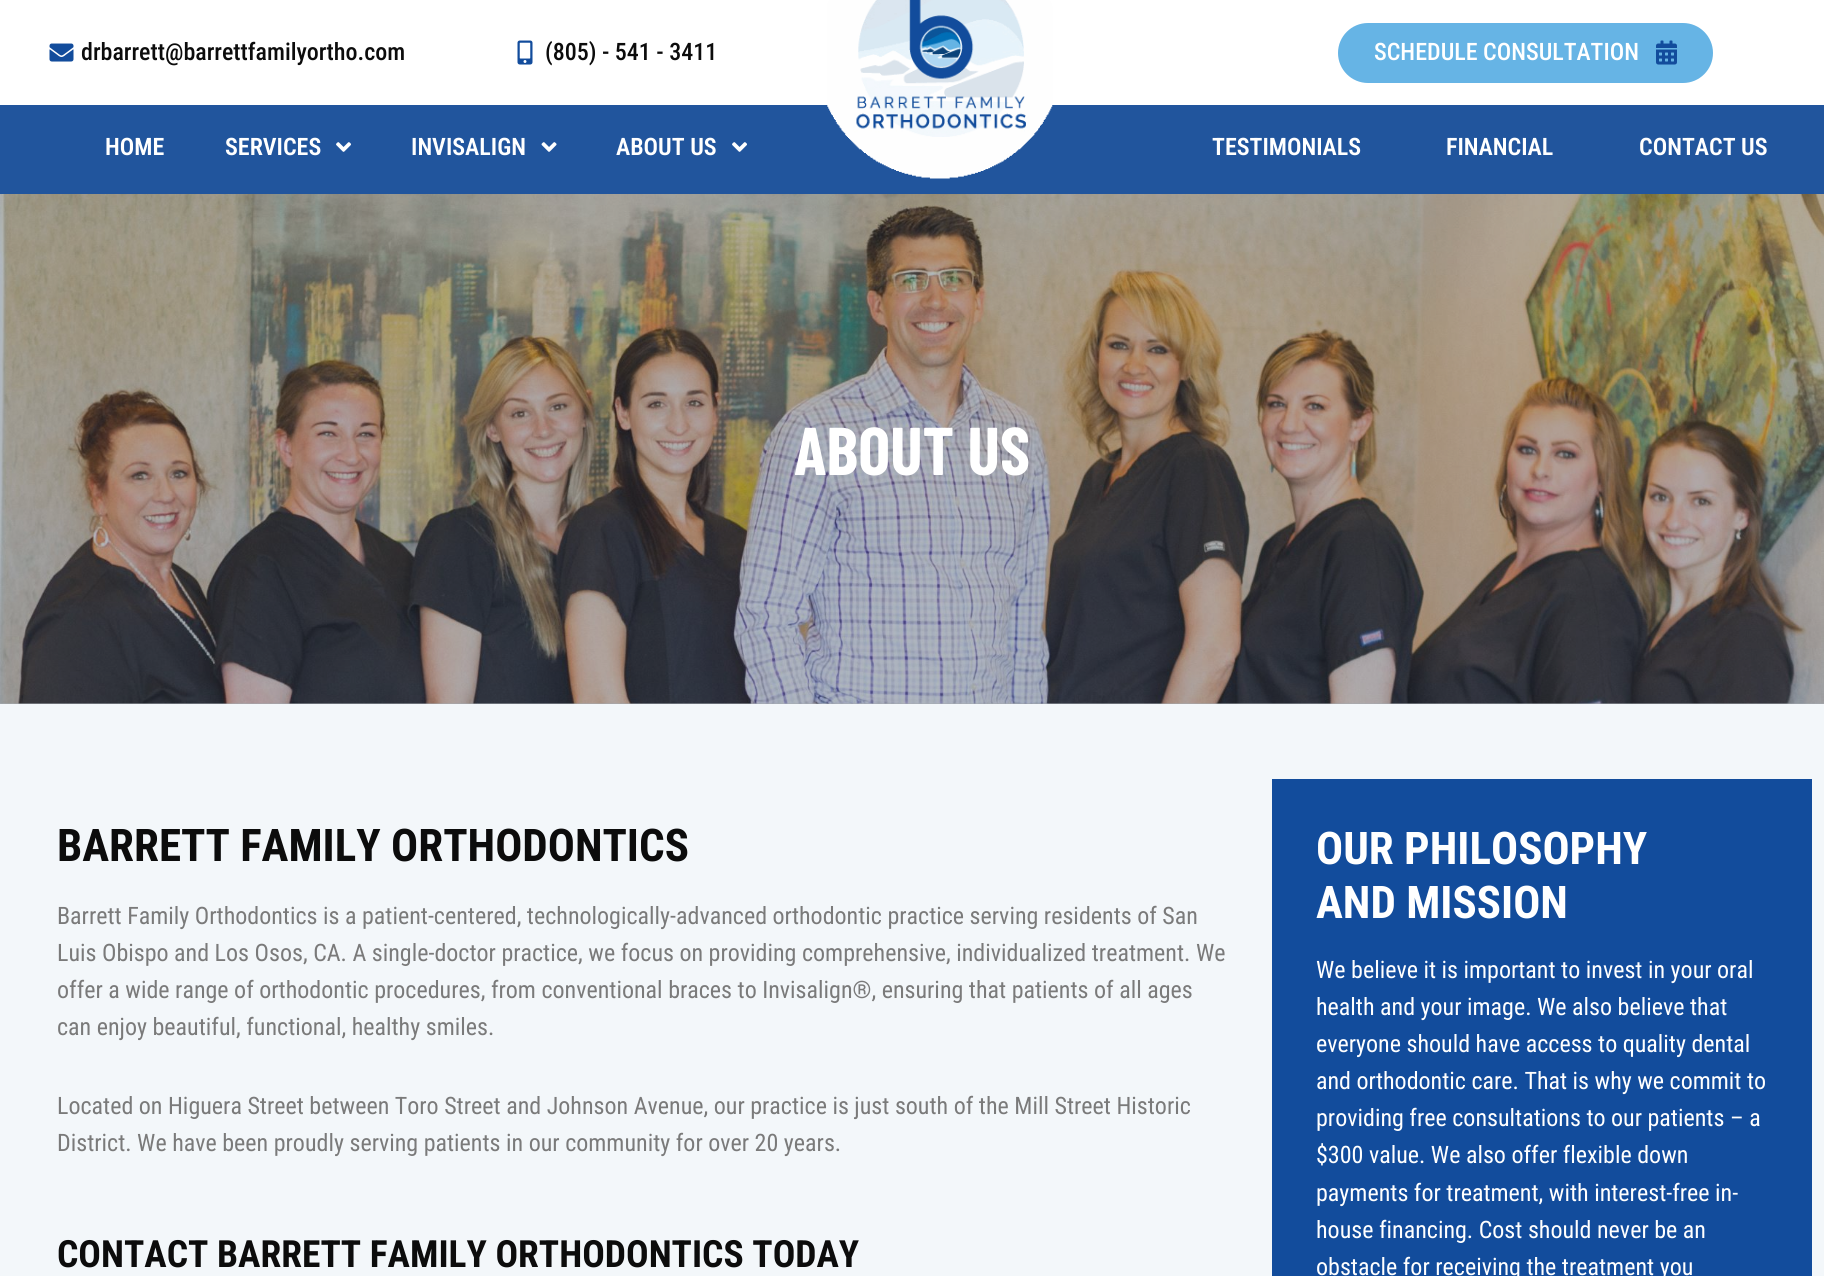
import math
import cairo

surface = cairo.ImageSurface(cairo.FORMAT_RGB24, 1824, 1276)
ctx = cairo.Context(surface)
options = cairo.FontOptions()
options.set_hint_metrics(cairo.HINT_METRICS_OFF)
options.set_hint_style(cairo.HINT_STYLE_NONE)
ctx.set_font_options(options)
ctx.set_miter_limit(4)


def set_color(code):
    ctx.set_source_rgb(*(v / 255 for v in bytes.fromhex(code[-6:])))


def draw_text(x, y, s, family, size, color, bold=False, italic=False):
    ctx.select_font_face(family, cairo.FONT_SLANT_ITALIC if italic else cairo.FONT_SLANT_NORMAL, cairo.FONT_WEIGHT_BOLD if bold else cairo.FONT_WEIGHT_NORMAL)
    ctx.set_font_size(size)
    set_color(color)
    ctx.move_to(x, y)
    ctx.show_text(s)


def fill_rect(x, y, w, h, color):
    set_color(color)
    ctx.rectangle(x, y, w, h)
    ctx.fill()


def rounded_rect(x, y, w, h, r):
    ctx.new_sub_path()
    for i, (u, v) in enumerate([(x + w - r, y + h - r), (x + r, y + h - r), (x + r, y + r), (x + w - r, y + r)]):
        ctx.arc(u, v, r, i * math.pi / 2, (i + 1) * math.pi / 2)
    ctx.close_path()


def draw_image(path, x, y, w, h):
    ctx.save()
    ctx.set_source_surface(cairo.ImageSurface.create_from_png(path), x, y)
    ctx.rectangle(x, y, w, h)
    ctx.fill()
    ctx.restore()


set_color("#f3f7fa")
ctx.paint()
fill_rect(0, 0, 1824, 105, "#ffffff")
draw_image("assets/img1.png", 49, 43, 25, 19)
draw_text(81, 60, "drbarrett@barrettfamilyortho.com", "Roboto Condensed Medium", 24, "#0c0c0c")
draw_image("assets/img2.png", 517, 40, 16, 25)
draw_text(545, 60, "(805) - 541 - 3411", "Roboto Condensed Medium", 24, "#0c0c0c")
set_color("#66b4e5")
rounded_rect(1338, 23, 375, 60, 30)
ctx.fill()
draw_text(1374, 60, "SCHEDULE CONSULTATION", "Roboto Condensed Medium", 24, "#ffffff")
draw_image("assets/img3.png", 1656, 40, 21, 25)
fill_rect(0, 105, 1824, 89, "#21559d")
draw_text(105, 155, "HOME", "Roboto Condensed SemiBold", 24, "#ffffff")
draw_text(225, 155, "SERVICES", "Roboto Condensed SemiBold", 24, "#ffffff")
draw_image("assets/img4.png", 336, 142, 15, 10)
draw_text(411, 155, "INVISALIGN", "Roboto Condensed SemiBold", 24, "#ffffff")
draw_image("assets/img5.png", 541, 142, 16, 10)
draw_text(616, 155, "ABOUT US", "Roboto Condensed SemiBold", 24, "#ffffff")
draw_image("assets/img4.png", 732, 142, 15, 10)
draw_image("assets/img6.png", 827, 0, 226, 179)
draw_text(1212, 155, "TESTIMONIALS", "Roboto Condensed SemiBold", 24, "#ffffff")
draw_text(1446, 155, "FINANCIAL", "Roboto Condensed SemiBold", 24, "#ffffff")
draw_text(1639, 155, "CONTACT US", "Roboto Condensed SemiBold", 24, "#ffffff")
fill_rect(0, 703, 1824, 1, "#a4aab1")
draw_image("assets/img7.png", 0, 194, 1824, 510)
draw_text(794, 475, "ABOUT US", "Barlow Condensed", 67.5, "#ffffff", bold=True)
draw_text(57, 861, "BARRETT FAMILY ORTHODONTICS", "Roboto Condensed", 45, "#0c0c0c", bold=True)
draw_text(57, 924, "Barrett Family Orthodontics is a patient-centered, technologically-advanced orthodontic practice serving residents of San", "Roboto Condensed", 24, "#7a7a7a")
draw_text(57, 961, "Luis Obispo and Los Osos, CA. A single-doctor practice, we focus on providing comprehensive, individualized treatment. We", "Roboto Condensed", 24, "#7a7a7a")
draw_text(57, 998, "offer a wide range of orthodontic procedures, from conventional braces to Invisalign®, ensuring that patients of all ages", "Roboto Condensed", 24, "#7a7a7a")
draw_text(57, 1035, "can enjoy beautiful, functional, healthy smiles.", "Roboto Condensed", 24, "#7a7a7a")
draw_text(57, 1114, "Located on Higuera Street between Toro Street and Johnson Avenue, our practice is just south of the Mill Street Historic", "Roboto Condensed", 24, "#7a7a7a")
draw_text(57, 1151, "District. We have been proudly serving patients in our community for over 20 years.", "Roboto Condensed", 24, "#7a7a7a")
draw_text(57, 1267, "CONTACT BARRETT FAMILY ORTHODONTICS TODAY", "Roboto Condensed", 37.5, "#0c0c0c", bold=True)
fill_rect(1272, 779, 540, 497, "#124c9c")
draw_text(1316, 864, "OUR PHILOSOPHY", "Roboto Condensed", 45, "#ffffff", bold=True)
draw_text(1316, 918, "AND MISSION", "Roboto Condensed", 45, "#ffffff", bold=True)
draw_text(1316, 978, "We believe it is important to invest in your oral", "Roboto Condensed", 24, "#ffffff")
draw_text(1316, 1015, "health and your image. We also believe that", "Roboto Condensed", 24, "#ffffff")
draw_text(1316, 1052, "everyone should have access to quality dental", "Roboto Condensed", 24, "#ffffff")
draw_text(1316, 1089, "and orthodontic care. That is why we commit to", "Roboto Condensed", 24, "#ffffff")
draw_text(1316, 1126, "providing free consultations to our patients – a", "Roboto Condensed", 24, "#ffffff")
draw_text(1316, 1163, "$300 value. We also offer flexible down", "Roboto Condensed", 24, "#ffffff")
draw_text(1316, 1201, "payments for treatment, with interest-free in-", "Roboto Condensed", 24, "#ffffff")
draw_text(1316, 1238, "house financing. Cost should never be an", "Roboto Condensed", 24, "#ffffff")
draw_text(1316, 1275, "obstacle for receiving the treatment you", "Roboto Condensed", 24, "#ffffff")
surface.write_to_png("output.png")
